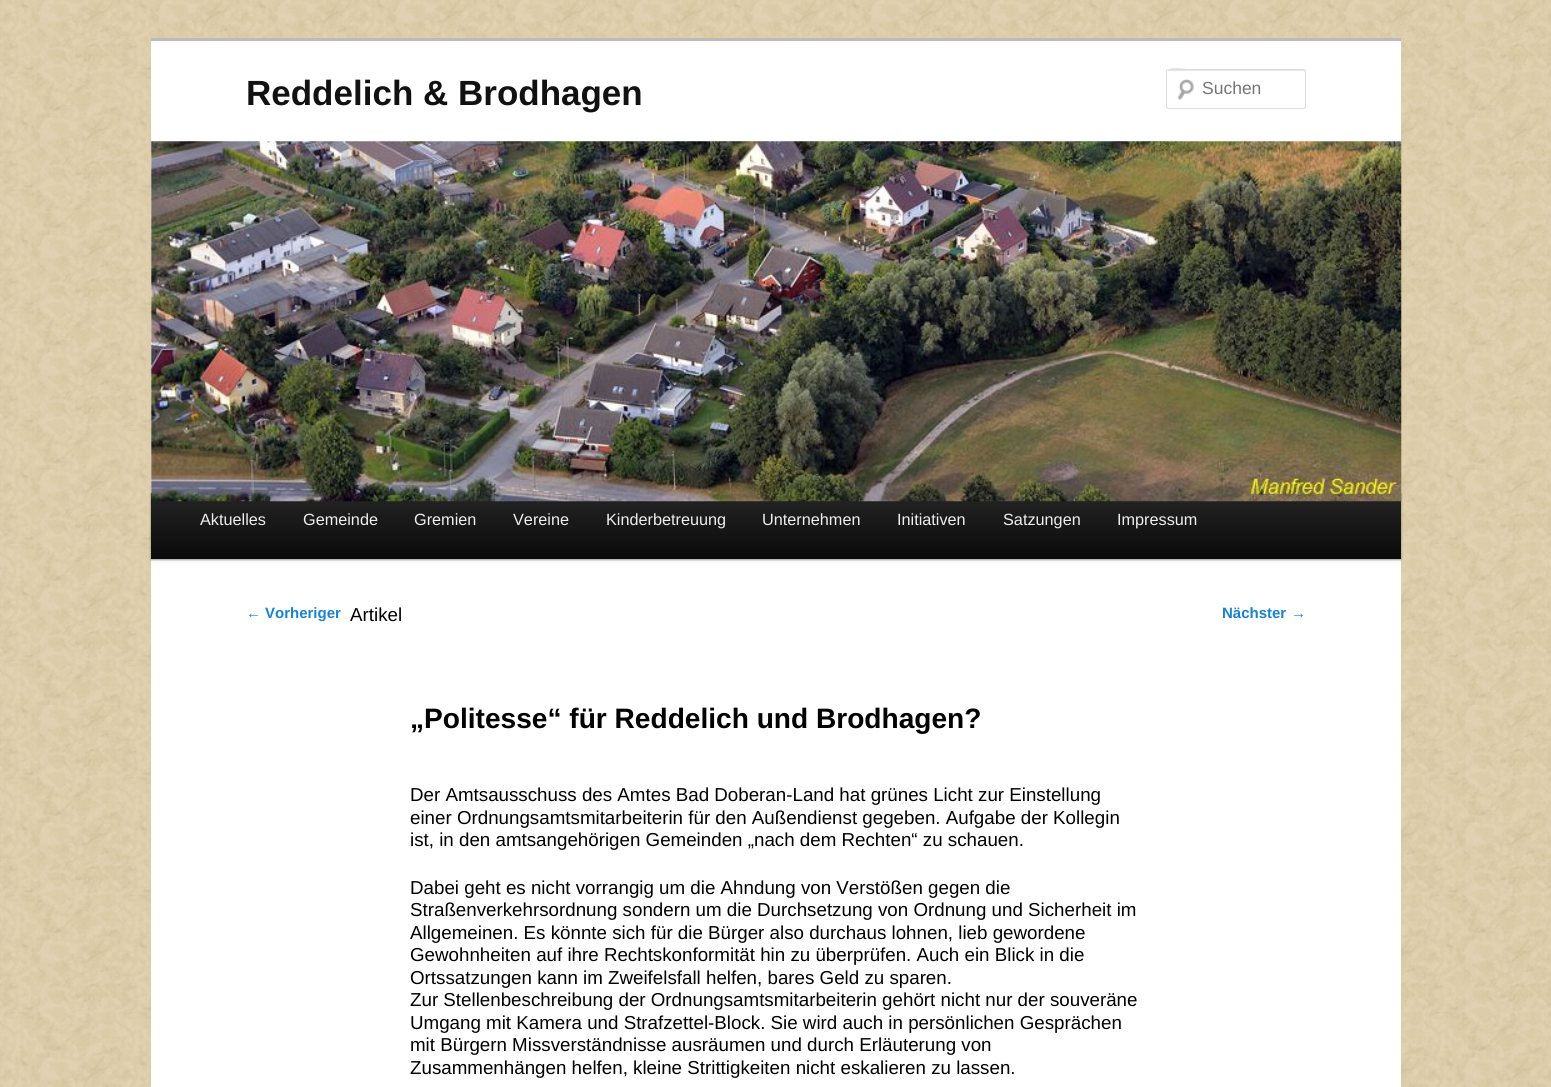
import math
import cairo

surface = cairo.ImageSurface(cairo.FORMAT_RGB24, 1551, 1087)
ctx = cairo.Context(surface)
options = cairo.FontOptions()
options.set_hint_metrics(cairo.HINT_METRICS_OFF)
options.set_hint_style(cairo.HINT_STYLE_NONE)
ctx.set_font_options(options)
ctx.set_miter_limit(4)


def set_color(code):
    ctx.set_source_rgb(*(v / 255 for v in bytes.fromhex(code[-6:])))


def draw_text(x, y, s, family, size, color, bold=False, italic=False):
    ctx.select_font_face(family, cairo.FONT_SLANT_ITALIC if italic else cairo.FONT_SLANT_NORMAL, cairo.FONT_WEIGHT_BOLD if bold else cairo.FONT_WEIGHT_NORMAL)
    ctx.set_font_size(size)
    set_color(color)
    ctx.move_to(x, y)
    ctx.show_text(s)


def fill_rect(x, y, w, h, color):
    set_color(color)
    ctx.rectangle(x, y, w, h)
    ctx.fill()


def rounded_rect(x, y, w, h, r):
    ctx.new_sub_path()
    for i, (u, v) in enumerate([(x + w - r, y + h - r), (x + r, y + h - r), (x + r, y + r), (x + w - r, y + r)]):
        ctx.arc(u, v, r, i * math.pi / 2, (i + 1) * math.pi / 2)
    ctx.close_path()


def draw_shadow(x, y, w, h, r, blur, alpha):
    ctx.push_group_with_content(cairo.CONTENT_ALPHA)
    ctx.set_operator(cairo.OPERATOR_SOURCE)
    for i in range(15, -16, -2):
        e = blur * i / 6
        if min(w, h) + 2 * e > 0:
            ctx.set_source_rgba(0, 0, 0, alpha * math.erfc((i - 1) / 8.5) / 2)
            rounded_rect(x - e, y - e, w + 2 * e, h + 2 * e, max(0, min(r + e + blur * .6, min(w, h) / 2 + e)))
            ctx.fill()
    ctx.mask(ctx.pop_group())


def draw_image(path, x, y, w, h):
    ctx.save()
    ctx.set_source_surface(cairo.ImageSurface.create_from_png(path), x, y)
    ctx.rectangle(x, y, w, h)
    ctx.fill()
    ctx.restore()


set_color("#ffffff")
ctx.paint()
draw_image("assets/img1.png", 0, 0, 1551, 1087)
fill_rect(151, 41, 1250, 1046, "#ffffff")
fill_rect(151, 38, 1250, 3, "#bbbbbb")
draw_text(246, 105, "Reddelich & Brodhagen", "Liberation Sans", 35, "#111111", bold=True)
draw_image("assets/img2.png", 1177, 79, 17, 21)
set_color("#e6e6e6")
ctx.new_path()
ctx.move_to(1169, 71)
ctx.line_to(1304, 71)
ctx.line_to(1305, 72)
ctx.line_to(1305, 70)
ctx.line_to(1192, 70)
ctx.curve_to(1191, 70, 1168, 64, 1168, 72)
ctx.close_path()
ctx.fill()
rounded_rect(1166.5, 69.5, 139, 39, 2)
set_color("#dddddd")
ctx.set_line_width(1)
ctx.stroke()
draw_text(1202, 94, "Suchen", "Liberation Sans", 17.5, "#757575")
set_color("#000000")
draw_shadow(151, 494, 1250, 66, 0, 1, 0.4)
gradient = cairo.LinearGradient(776, 492, 776, 559)
gradient.add_color_stop_rgba(0, 0.145, 0.145, 0.145, 1)
gradient.add_color_stop_rgba(1, 0.039, 0.039, 0.039, 1)
ctx.set_source(gradient)
ctx.rectangle(151, 493, 1250, 66)
ctx.fill()
draw_image("assets/img3.png", 151, 141, 1251, 361)
draw_text(200, 525, "Aktuelles", "Liberation Sans", 16.25, "#eeeeee")
draw_text(303, 525, "Gemeinde", "Liberation Sans", 16.25, "#eeeeee")
draw_text(414, 525, "Gremien", "Liberation Sans", 16.25, "#eeeeee")
draw_text(513, 525, "Vereine", "Liberation Sans", 16.25, "#eeeeee")
draw_text(606, 525, "Kinderbetreuung", "Liberation Sans", 16.25, "#eeeeee")
draw_text(762, 525, "Unternehmen", "Liberation Sans", 16.25, "#eeeeee")
draw_text(897, 525, "Initiativen", "Liberation Sans", 16.25, "#eeeeee")
draw_text(1003, 525, "Satzungen", "Liberation Sans", 16.25, "#eeeeee")
draw_text(1117, 525, "Impressum", "Liberation Sans", 16.25, "#eeeeee")
draw_text(246, 618, "←", "Liberation Sans", 15, "#1982d1")
draw_text(265, 618, "Vorheriger", "Liberation Sans", 15, "#1982d1", bold=True)
draw_text(350, 621, "Artikel", "Liberation Sans", 18.75, "#000000")
draw_text(1222, 618, "Nächster", "Liberation Sans", 15, "#1982d1", bold=True)
draw_text(1291, 618, "→", "Liberation Sans", 15, "#1982d1")
draw_text(410, 728, "„Politesse“ für Reddelich und Brodhagen?", "Liberation Sans", 28.1, "#000000", bold=True)
draw_text(410, 801, "Der Amtsausschuss des Amtes Bad Doberan-Land hat grünes Licht zur Einstellung", "Liberation Sans", 18.75, "#000000")
draw_text(410, 824, "einer Ordnungsamtsmitarbeiterin für den Außendienst gegeben. Aufgabe der Kollegin", "Liberation Sans", 18.75, "#000000")
draw_text(410, 846, "ist, in den amtsangehörigen Gemeinden „nach dem Rechten“ zu schauen.", "Liberation Sans", 18.75, "#000000")
draw_text(410, 894, "Dabei geht es nicht vorrangig um die Ahndung von Verstößen gegen die", "Liberation Sans", 18.75, "#000000")
draw_text(410, 916, "Straßenverkehrsordnung sondern um die Durchsetzung von Ordnung und Sicherheit im", "Liberation Sans", 18.75, "#000000")
draw_text(410, 939, "Allgemeinen. Es könnte sich für die Bürger also durchaus lohnen, lieb gewordene", "Liberation Sans", 18.75, "#000000")
draw_text(410, 961, "Gewohnheiten auf ihre Rechtskonformität hin zu überprüfen. Auch ein Blick in die", "Liberation Sans", 18.75, "#000000")
draw_text(410, 984, "Ortssatzungen kann im Zweifelsfall helfen, bares Geld zu sparen.", "Liberation Sans", 18.75, "#000000")
draw_text(410, 1006, "Zur Stellenbeschreibung der Ordnungsamtsmitarbeiterin gehört nicht nur der souveräne", "Liberation Sans", 18.75, "#000000")
draw_text(410, 1029, "Umgang mit Kamera und Strafzettel-Block. Sie wird auch in persönlichen Gesprächen", "Liberation Sans", 18.75, "#000000")
draw_text(410, 1051, "mit Bürgern Missverständnisse ausräumen und durch Erläuterung von", "Liberation Sans", 18.75, "#000000")
draw_text(410, 1074, "Zusammenhängen helfen, kleine Strittigkeiten nicht eskalieren zu lassen.", "Liberation Sans", 18.75, "#000000")
surface.write_to_png("output.png")
